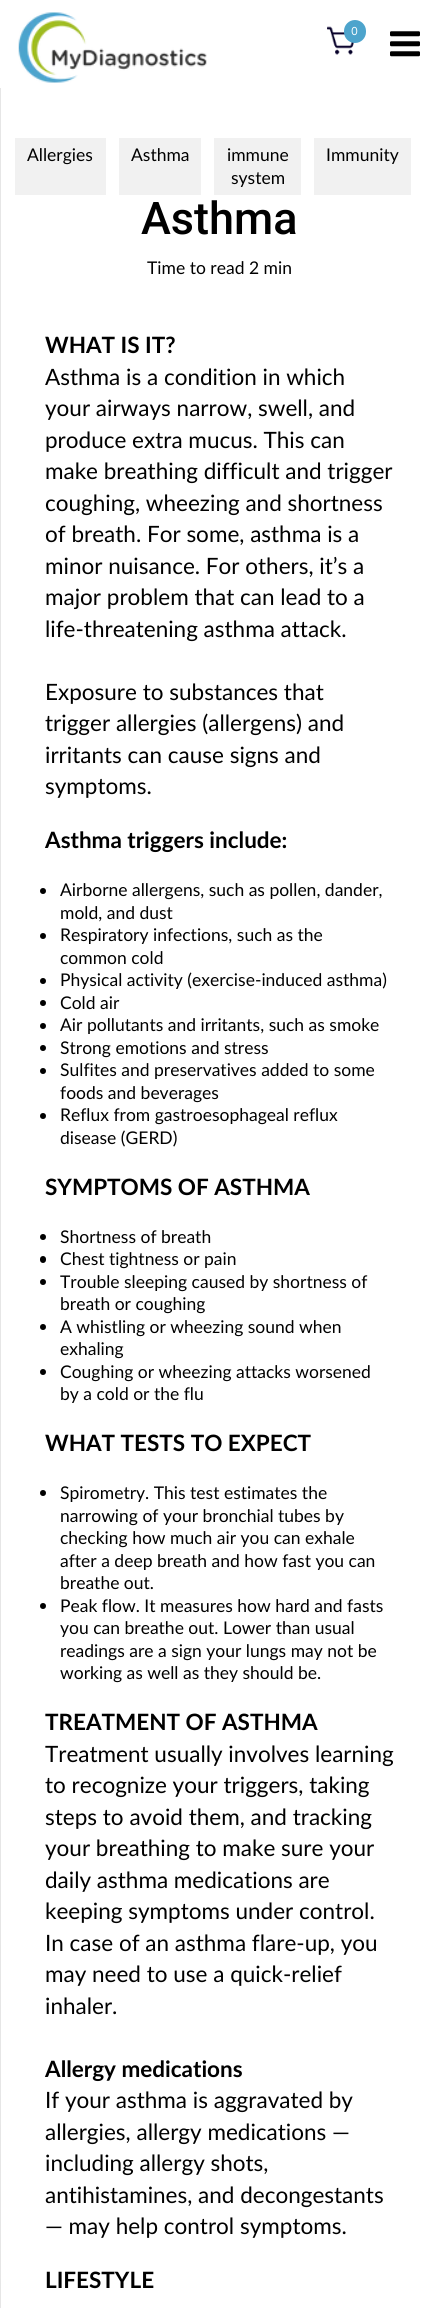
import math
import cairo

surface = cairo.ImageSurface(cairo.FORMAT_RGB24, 438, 2308)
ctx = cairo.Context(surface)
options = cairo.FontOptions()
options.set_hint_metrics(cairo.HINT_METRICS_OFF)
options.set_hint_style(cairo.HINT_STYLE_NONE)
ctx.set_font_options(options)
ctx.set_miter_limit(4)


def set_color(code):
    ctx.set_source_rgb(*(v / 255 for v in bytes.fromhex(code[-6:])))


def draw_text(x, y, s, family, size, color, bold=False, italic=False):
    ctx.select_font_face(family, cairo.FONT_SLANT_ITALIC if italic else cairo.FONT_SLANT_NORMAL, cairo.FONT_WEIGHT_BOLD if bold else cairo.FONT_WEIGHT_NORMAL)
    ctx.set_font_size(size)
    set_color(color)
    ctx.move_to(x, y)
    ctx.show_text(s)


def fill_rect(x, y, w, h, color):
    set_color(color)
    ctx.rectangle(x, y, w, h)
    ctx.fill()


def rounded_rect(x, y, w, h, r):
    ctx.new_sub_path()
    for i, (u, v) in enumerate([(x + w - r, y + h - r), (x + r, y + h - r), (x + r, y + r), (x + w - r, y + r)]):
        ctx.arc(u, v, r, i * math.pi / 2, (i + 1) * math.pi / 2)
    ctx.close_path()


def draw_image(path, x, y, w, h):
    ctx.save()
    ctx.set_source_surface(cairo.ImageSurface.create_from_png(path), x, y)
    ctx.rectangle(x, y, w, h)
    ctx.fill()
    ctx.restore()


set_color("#ffffff")
ctx.paint()
draw_image("assets/img1.png", 18, 12, 189, 71)
draw_image("assets/img2.png", 327, 26, 28, 29)
set_color("#4da4cc")
rounded_rect(344, 20, 22, 23, 11)
ctx.fill()
draw_text(351, 35, "0", "Inter", 11, "#ffffff")
draw_image("assets/img3.png", 390, 31, 30, 26)
fill_rect(0, 88, 1, 2220, "#e6e6e6")
fill_rect(15, 138, 91, 57, "#f1f1f1")
draw_text(27, 161, "Allergies", "Lato", 17.5, "#000000")
fill_rect(119, 138, 82, 57, "#f1f1f1")
draw_text(131, 161, "Asthma", "Lato", 17.5, "#000000")
fill_rect(214, 138, 87, 57, "#f1f1f1")
draw_text(227, 161, "immune", "Lato", 17.5, "#000000")
draw_text(231, 184, "system", "Lato", 17.5, "#000000")
fill_rect(314, 138, 97, 57, "#f1f1f1")
draw_text(326, 161, "Immunity", "Lato", 17.5, "#000000")
draw_text(141, 234, "Asthma", "Roboto Medium", 45, "#000000")
draw_text(147, 274, "Time to read 2 min", "Lato", 17.5, "#000000")
draw_text(45, 353, "WHAT IS IT?", "Lato", 22.5, "#000000", bold=True)
draw_text(45, 385, "Asthma is a condition in which", "Lato", 22.5, "#000000")
draw_text(45, 416, "your airways narrow, swell, and", "Lato", 22.5, "#000000")
draw_text(45, 448, "produce extra mucus. This can", "Lato", 22.5, "#000000")
draw_text(45, 479, "make breathing difficult and trigger", "Lato", 22.5, "#000000")
draw_text(45, 511, "coughing, wheezing and shortness", "Lato", 22.5, "#000000")
draw_text(45, 542, "of breath. For some, asthma is a", "Lato", 22.5, "#000000")
draw_text(45, 574, "minor nuisance. For others, it’s a", "Lato", 22.5, "#000000")
draw_text(45, 605, "major problem that can lead to a", "Lato", 22.5, "#000000")
draw_text(45, 637, "life-threatening asthma attack.", "Lato", 22.5, "#000000")
draw_text(45, 700, "Exposure to substances that", "Lato", 22.5, "#000000")
draw_text(45, 731, "trigger allergies (allergens) and", "Lato", 22.5, "#000000")
draw_text(45, 763, "irritants can cause signs and", "Lato", 22.5, "#000000")
draw_text(45, 794, "symptoms.", "Lato", 22.5, "#000000")
draw_text(45, 848, "Asthma triggers include:", "Lato", 22.5, "#000000", bold=True)
ctx.new_path()
ctx.arc(43, 891, 3, 0, 2 * math.pi)
ctx.fill()
draw_text(60, 896, "Airborne allergens, such as pollen, dander,", "Lato", 17.5, "#000000")
draw_text(60, 919, "mold, and dust", "Lato", 17.5, "#000000")
ctx.new_path()
ctx.arc(43, 936, 3, 0, 2 * math.pi)
ctx.fill()
draw_text(60, 941, "Respiratory infections, such as the", "Lato", 17.5, "#000000")
draw_text(60, 964, "common cold", "Lato", 17.5, "#000000")
ctx.new_path()
ctx.arc(43, 981, 3, 0, 2 * math.pi)
ctx.fill()
draw_text(60, 986, "Physical activity (exercise-induced asthma)", "Lato", 17.5, "#000000")
ctx.new_path()
ctx.arc(43, 1003, 3, 0, 2 * math.pi)
ctx.fill()
draw_text(60, 1009, "Cold air", "Lato", 17.5, "#000000")
ctx.new_path()
ctx.arc(43, 1026, 3, 0, 2 * math.pi)
ctx.fill()
draw_text(60, 1031, "Air pollutants and irritants, such as smoke", "Lato", 17.5, "#000000")
ctx.new_path()
ctx.arc(43, 1048, 3, 0, 2 * math.pi)
ctx.fill()
draw_text(60, 1054, "Strong emotions and stress", "Lato", 17.5, "#000000")
ctx.new_path()
ctx.arc(43, 1071, 3, 0, 2 * math.pi)
ctx.fill()
draw_text(60, 1076, "Sulfites and preservatives added to some", "Lato", 17.5, "#000000")
draw_text(60, 1099, "foods and beverages", "Lato", 17.5, "#000000")
ctx.new_path()
ctx.arc(43, 1116, 3, 0, 2 * math.pi)
ctx.fill()
draw_text(60, 1121, "Reflux from gastroesophageal reflux", "Lato", 17.5, "#000000")
draw_text(60, 1144, "disease (GERD)", "Lato", 17.5, "#000000")
draw_text(45, 1195, "SYMPTOMS OF ASTHMA", "Lato", 22.5, "#000000", bold=True)
ctx.new_path()
ctx.arc(43, 1237, 3, 0, 2 * math.pi)
ctx.fill()
draw_text(60, 1243, "Shortness of breath", "Lato", 17.5, "#000000")
rounded_rect(40, 1256, 6, 7, 3)
ctx.fill()
draw_text(60, 1265, "Chest tightness or pain", "Lato", 17.5, "#000000")
ctx.new_path()
ctx.arc(43, 1282, 3, 0, 2 * math.pi)
ctx.fill()
draw_text(60, 1288, "Trouble sleeping caused by shortness of", "Lato", 17.5, "#000000")
draw_text(60, 1310, "breath or coughing", "Lato", 17.5, "#000000")
ctx.new_path()
ctx.arc(43, 1327, 3, 0, 2 * math.pi)
ctx.fill()
draw_text(60, 1333, "A whistling or wheezing sound when", "Lato", 17.5, "#000000")
draw_text(60, 1355, "exhaling", "Lato", 17.5, "#000000")
ctx.new_path()
ctx.arc(43, 1372, 3, 0, 2 * math.pi)
ctx.fill()
draw_text(60, 1378, "Coughing or wheezing attacks worsened", "Lato", 17.5, "#000000")
draw_text(60, 1400, "by a cold or the flu", "Lato", 17.5, "#000000")
draw_text(45, 1451, "WHAT TESTS TO EXPECT", "Lato", 22.5, "#000000", bold=True)
ctx.new_path()
ctx.arc(43, 1493, 3, 0, 2 * math.pi)
ctx.fill()
draw_text(60, 1499, "Spirometry. This test estimates the", "Lato", 17.5, "#000000")
draw_text(60, 1522, "narrowing of your bronchial tubes by", "Lato", 17.5, "#000000")
draw_text(60, 1544, "checking how much air you can exhale", "Lato", 17.5, "#000000")
draw_text(60, 1567, "after a deep breath and how fast you can", "Lato", 17.5, "#000000")
draw_text(60, 1589, "breathe out.", "Lato", 17.5, "#000000")
ctx.new_path()
ctx.arc(43, 1606, 3, 0, 2 * math.pi)
ctx.fill()
draw_text(60, 1612, "Peak flow. It measures how hard and fasts", "Lato", 17.5, "#000000")
draw_text(60, 1634, "you can breathe out. Lower than usual", "Lato", 17.5, "#000000")
draw_text(60, 1657, "readings are a sign your lungs may not be", "Lato", 17.5, "#000000")
draw_text(60, 1679, "working as well as they should be.", "Lato", 17.5, "#000000")
draw_text(45, 1730, "TREATMENT OF ASTHMA", "Lato", 22.5, "#000000", bold=True)
draw_text(45, 1762, "Treatment usually involves learning", "Lato", 22.5, "#000000")
draw_text(45, 1793, "to recognize your triggers, taking", "Lato", 22.5, "#000000")
draw_text(45, 1825, "steps to avoid them, and tracking", "Lato", 22.5, "#000000")
draw_text(45, 1856, "your breathing to make sure your", "Lato", 22.5, "#000000")
draw_text(45, 1888, "daily asthma medications are", "Lato", 22.5, "#000000")
draw_text(45, 1919, "keeping symptoms under control.", "Lato", 22.5, "#000000")
draw_text(45, 1951, "In case of an asthma flare-up, you", "Lato", 22.5, "#000000")
draw_text(45, 1982, "may need to use a quick-relief", "Lato", 22.5, "#000000")
draw_text(45, 2014, "inhaler.", "Lato", 22.5, "#000000")
draw_text(45, 2077, "Allergy medications", "Lato", 22.5, "#000000", bold=True)
draw_text(45, 2108, "If your asthma is aggravated by", "Lato", 22.5, "#000000")
draw_text(45, 2140, "allergies, allergy medications —", "Lato", 22.5, "#000000")
draw_text(45, 2171, "including allergy shots,", "Lato", 22.5, "#000000")
draw_text(45, 2203, "antihistamines, and decongestants", "Lato", 22.5, "#000000")
draw_text(45, 2234, "— may help control symptoms.", "Lato", 22.5, "#000000")
draw_text(45, 2288, "LIFESTYLE", "Lato", 22.5, "#000000", bold=True)
surface.write_to_png("output.png")
